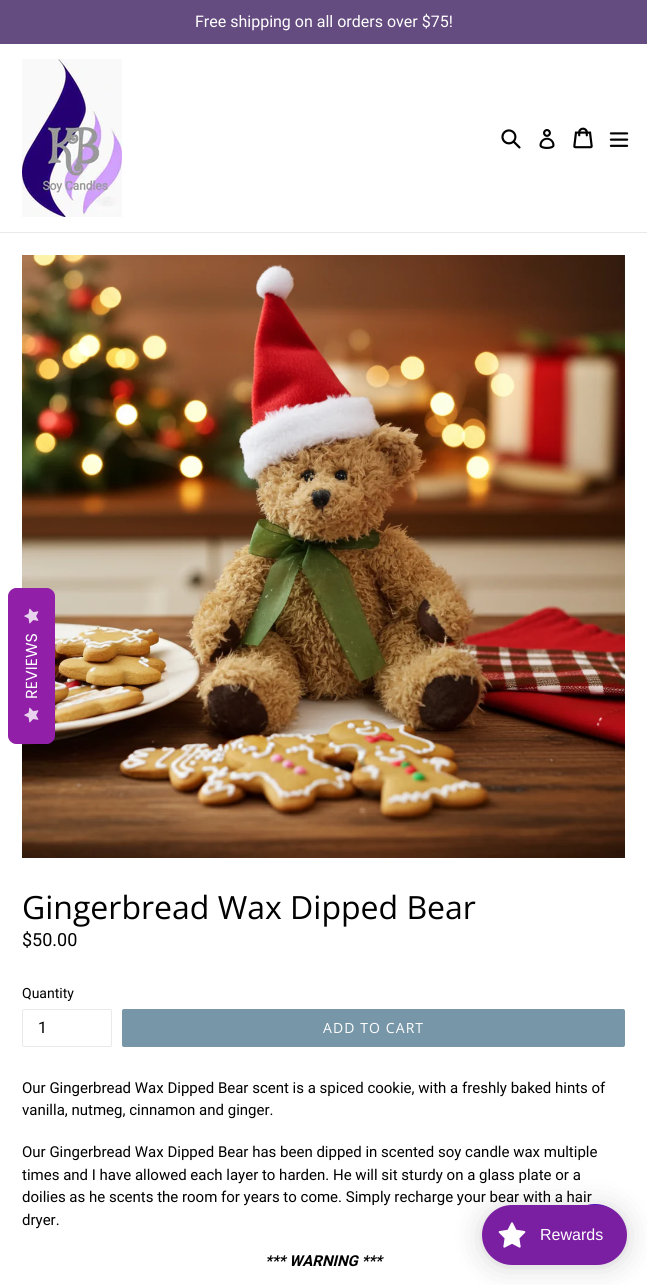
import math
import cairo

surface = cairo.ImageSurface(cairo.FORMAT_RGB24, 647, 1285)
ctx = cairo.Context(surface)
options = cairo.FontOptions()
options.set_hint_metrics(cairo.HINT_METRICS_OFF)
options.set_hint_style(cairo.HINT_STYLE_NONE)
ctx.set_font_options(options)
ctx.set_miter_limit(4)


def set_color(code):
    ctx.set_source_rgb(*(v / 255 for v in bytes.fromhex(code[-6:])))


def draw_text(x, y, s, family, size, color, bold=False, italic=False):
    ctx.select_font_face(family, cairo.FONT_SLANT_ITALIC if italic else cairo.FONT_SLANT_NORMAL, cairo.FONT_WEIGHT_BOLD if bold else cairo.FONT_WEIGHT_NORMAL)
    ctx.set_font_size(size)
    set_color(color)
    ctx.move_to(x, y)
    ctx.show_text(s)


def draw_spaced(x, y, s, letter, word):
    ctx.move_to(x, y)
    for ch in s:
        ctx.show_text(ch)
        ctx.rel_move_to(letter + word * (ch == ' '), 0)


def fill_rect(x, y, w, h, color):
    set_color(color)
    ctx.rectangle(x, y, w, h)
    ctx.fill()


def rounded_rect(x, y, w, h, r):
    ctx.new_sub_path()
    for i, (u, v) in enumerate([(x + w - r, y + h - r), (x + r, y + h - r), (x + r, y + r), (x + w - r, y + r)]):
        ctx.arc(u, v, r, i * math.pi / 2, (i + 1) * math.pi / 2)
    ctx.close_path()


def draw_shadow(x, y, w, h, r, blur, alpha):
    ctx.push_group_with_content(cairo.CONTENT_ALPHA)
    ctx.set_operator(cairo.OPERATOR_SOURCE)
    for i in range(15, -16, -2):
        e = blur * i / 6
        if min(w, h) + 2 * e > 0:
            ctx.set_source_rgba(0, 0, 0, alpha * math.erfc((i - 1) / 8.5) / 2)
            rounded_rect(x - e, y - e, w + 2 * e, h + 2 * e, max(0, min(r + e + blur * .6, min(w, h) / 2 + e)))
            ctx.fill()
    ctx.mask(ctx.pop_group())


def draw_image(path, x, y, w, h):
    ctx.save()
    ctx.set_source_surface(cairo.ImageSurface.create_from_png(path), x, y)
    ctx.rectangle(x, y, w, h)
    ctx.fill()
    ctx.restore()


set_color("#ffffff")
ctx.paint()
fill_rect(0, 0, 647, 44, "#644b80")
draw_text(195, 27, "Free shipping on all orders over $75!", "Roboto", 16, "#ffffff")
fill_rect(0, 232, 647, 1, "#e8e9eb")
draw_image("assets/img1.png", 22, 59, 100, 158)
draw_image("assets/img2.png", 501, 129, 20, 20)
draw_image("assets/img3.png", 539, 129, 16, 20)
draw_image("assets/img4.png", 573, 127, 20, 22)
draw_image("assets/img5.png", 609, 132, 20, 15)
draw_image("assets/img7.png", 22, 255, 603, 603)
set_color("#911fa8")
ctx.new_path()
ctx.move_to(8, 736)
ctx.line_to(8, 596)
ctx.curve_to(8, 592, 12, 588, 16, 588)
ctx.line_to(47, 588)
ctx.curve_to(51, 588, 55, 592, 55, 596)
ctx.line_to(55, 736)
ctx.curve_to(55, 740, 51, 744, 47, 744)
ctx.line_to(16, 744)
ctx.curve_to(12, 744, 8, 740, 8, 736)
ctx.close_path()
ctx.fill()
draw_image("assets/img6.png", 24, 608, 15, 16)
ctx.save()
ctx.translate(37, 699)
ctx.rotate(-90 * math.pi / 180)
draw_text(0, 0, "REVIEWS", "Poppins", 16, "#ffffff")
ctx.restore()
draw_image("assets/img6.png", 24, 707, 15, 16)
draw_text(22, 919, "Gingerbread Wax Dipped Bear", "Open Sans", 32, "#000000")
draw_text(22, 946, "$50.00", "Roboto", 18, "#000000")
draw_text(22, 998, "Quantity", "Roboto", 14, "#000000")
rounded_rect(22.5, 1009.5, 89, 37, 1.5)
set_color("#e8e9eb")
ctx.set_line_width(1)
ctx.stroke()
draw_text(38, 1033, "1", "Roboto", 16, "#000000")
set_color("#7796a8")
rounded_rect(122, 1009, 503, 38, 2)
ctx.fill()
ctx.select_font_face("Open Sans")
ctx.set_font_size(14)
set_color("#ffffff")
draw_spaced(323, 1033, "ADD TO CART", 1.1, 0)
draw_text(22, 1093, "Our Gingerbread Wax Dipped Bear scent is a spiced cookie, with a freshly baked hints of", "Roboto", 15, "#000000")
draw_text(22, 1115, "vanilla, nutmeg, cinnamon and ginger.", "Roboto", 15, "#000000")
draw_text(22, 1157, "Our Gingerbread Wax Dipped Bear has been dipped in scented soy candle wax multiple", "Roboto", 15, "#000000")
draw_text(22, 1180, "times and I have allowed each layer to harden. He will sit sturdy on a glass plate or a", "Roboto", 15, "#000000")
draw_text(22, 1202, "doilies as he scents the room for years to come. Simply recharge your bear with a hair", "Roboto", 15, "#000000")
draw_text(22, 1225, "dryer.", "Roboto", 15, "#000000")
draw_text(265, 1266, "*** WARNING ***", "Roboto", 15, "#000000", bold=True, italic=True)
set_color("#570ecf")
ctx.new_path()
ctx.arc(595, 1234, 30, 0, 2 * math.pi)
ctx.fill()
set_color("#000000")
draw_shadow(482, 1207, 145, 60, 30, 15, 0.15)
draw_shadow(482, 1206, 145, 60, 30, 3, 0.05)
set_color("#7b1fa2")
rounded_rect(482, 1205, 145, 60, 30)
ctx.fill()
draw_image("assets/img8.png", 498, 1222, 28, 26)
draw_text(540, 1240, "Rewards", "Liberation Sans", 16, "#ffffff")
surface.write_to_png("output.png")
